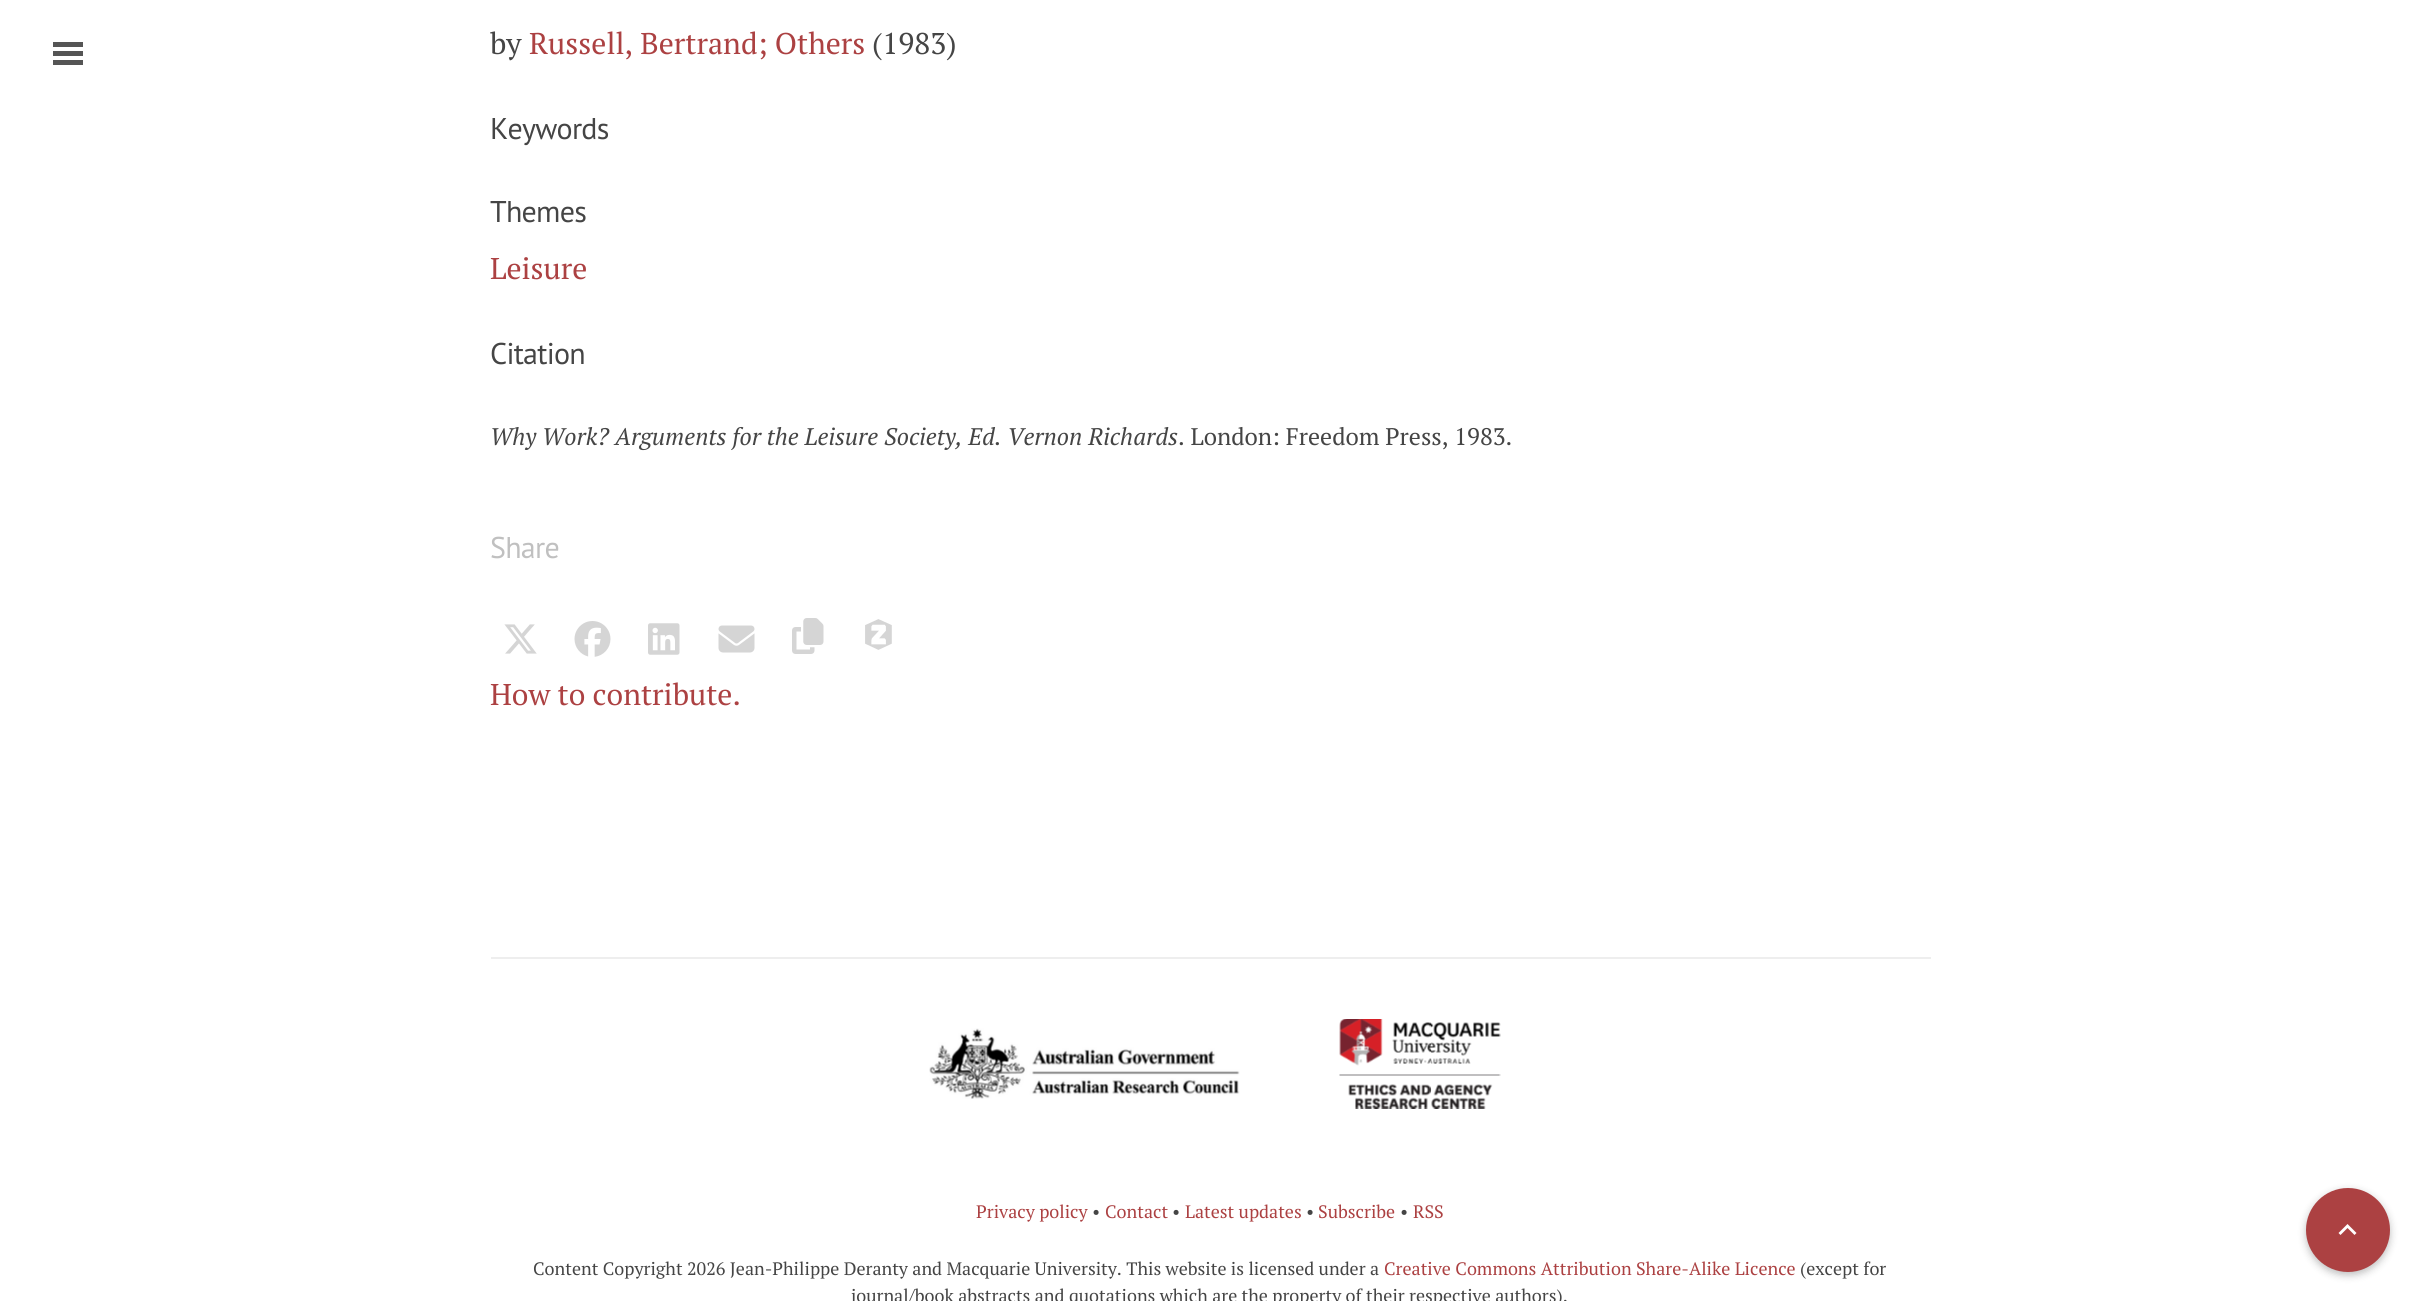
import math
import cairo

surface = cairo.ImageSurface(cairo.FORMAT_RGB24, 2419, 1301)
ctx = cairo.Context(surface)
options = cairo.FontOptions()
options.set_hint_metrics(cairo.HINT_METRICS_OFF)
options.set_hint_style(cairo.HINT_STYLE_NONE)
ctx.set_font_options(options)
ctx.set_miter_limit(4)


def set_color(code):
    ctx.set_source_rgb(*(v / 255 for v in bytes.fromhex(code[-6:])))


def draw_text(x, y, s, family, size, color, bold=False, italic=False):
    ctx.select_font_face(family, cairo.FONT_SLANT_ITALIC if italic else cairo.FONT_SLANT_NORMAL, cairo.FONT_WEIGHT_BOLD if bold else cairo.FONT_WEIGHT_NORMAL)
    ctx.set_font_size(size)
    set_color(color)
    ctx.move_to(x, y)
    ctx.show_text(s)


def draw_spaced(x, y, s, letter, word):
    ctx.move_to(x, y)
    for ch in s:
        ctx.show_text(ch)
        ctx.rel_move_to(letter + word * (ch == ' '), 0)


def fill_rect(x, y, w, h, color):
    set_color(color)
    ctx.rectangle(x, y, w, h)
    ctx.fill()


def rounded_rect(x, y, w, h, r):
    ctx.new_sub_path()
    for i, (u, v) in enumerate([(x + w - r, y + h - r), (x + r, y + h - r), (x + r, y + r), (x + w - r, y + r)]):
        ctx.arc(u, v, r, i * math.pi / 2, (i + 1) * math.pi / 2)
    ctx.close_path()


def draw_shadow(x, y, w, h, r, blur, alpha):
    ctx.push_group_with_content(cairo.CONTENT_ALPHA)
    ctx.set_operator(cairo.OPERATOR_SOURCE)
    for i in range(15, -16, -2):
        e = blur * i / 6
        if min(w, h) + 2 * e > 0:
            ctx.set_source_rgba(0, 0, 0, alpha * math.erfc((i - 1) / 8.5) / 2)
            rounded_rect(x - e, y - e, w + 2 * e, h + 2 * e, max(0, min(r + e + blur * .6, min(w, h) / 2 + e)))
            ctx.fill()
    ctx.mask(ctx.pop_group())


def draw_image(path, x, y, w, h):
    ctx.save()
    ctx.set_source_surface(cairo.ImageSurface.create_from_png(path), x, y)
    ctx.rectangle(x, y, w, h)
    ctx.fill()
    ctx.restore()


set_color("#ffffff")
ctx.paint()
fill_rect(53, 42, 30, 5, "#555555")
fill_rect(53, 51, 30, 5, "#555555")
fill_rect(53, 60, 30, 5, "#555555")
draw_text(490, 54, "by", "PT Serif", 30, "#454545")
draw_text(529, 54, "Russell, Bertrand; Others", "PT Serif", 30, "#ac4142")
draw_text(872, 54, "(1983)", "PT Serif", 30, "#454545")
ctx.select_font_face("PT Sans")
draw_spaced(490, 139, "Keywords", -0.75, 0)
draw_spaced(490, 222, "Themes", -0.75, 0)
draw_text(490, 279, "Leisure", "PT Serif", 30, "#ac4142")
ctx.select_font_face("PT Sans")
set_color("#454545")
draw_spaced(490, 364, "Citation", -0.75, 0)
draw_text(490, 445, "Why Work? Arguments for the Leisure Society, Ed. Vernon Richards", "PT Serif", 24, "#454545", italic=True)
draw_text(1178, 445, ". London: Freedom Press, 1983.", "PT Serif", 24, "#454545")
ctx.select_font_face("PT Sans")
ctx.set_font_size(30)
set_color("#c0c0c0")
draw_spaced(490, 558, "Share", -0.75, 0)
draw_image("assets/img1.png", 504, 624, 33, 30)
draw_image("assets/img2.png", 574, 621, 37, 36)
draw_image("assets/img3.png", 648, 623, 32, 32)
draw_image("assets/img4.png", 718, 625, 37, 28)
draw_image("assets/img5.png", 792, 618, 32, 36)
draw_image("assets/img6.png", 865, 619, 27, 31)
draw_text(490, 705, "How to contribute.", "PT Serif", 30, "#ac4142")
fill_rect(491, 957, 1440, 2, "#eeeeee")
draw_image("assets/img7.png", 929, 1028, 311, 71)
draw_image("assets/img8.png", 1339, 1019, 162, 90)
draw_text(976, 1218, "Privacy policy", "PT Serif", 18, "#ac4142")
draw_text(1092, 1218, "•", "PT Serif", 18, "#454545")
draw_text(1105, 1218, "Contact", "PT Serif", 18, "#ac4142")
draw_text(1172, 1218, "•", "PT Serif", 18, "#454545")
draw_text(1185, 1218, "Latest updates", "PT Serif", 18, "#ac4142")
draw_text(1306, 1218, "•", "PT Serif", 18, "#454545")
draw_text(1318, 1218, "Subscribe", "PT Serif", 18, "#ac4142")
draw_text(1400, 1218, "•", "PT Serif", 18, "#454545")
draw_text(1413, 1218, "RSS", "PT Serif", 18, "#ac4142")
draw_text(533, 1275, "Content Copyright 2026 Jean-Philippe Deranty and Macquarie University. This website is licensed under a", "PT Serif", 18, "#454545")
draw_text(1384, 1275, "Creative Commons Attribution Share-Alike Licence", "PT Serif", 18, "#ac4142")
draw_text(1800, 1275, "(except for", "PT Serif", 18, "#454545")
draw_text(851, 1302, "journal/book abstracts and quotations which are the property of their respective authors).", "PT Serif", 18, "#454545")
set_color("#000000")
draw_shadow(2306, 1191, 84, 84, 42, 4, 0.26)
set_color("#ac4142")
ctx.arc(2348, 1230, 42, 0, 2 * math.pi)
ctx.fill()
set_color("#ffffff")
ctx.new_path()
ctx.move_to(2340.5, 1235)
ctx.line_to(2347.5, 1228)
ctx.line_to(2354.5, 1235)
ctx.line_to(2356.5, 1233)
ctx.line_to(2347.5, 1224)
ctx.line_to(2338.5, 1233)
ctx.close_path()
ctx.fill()
surface.write_to_png("output.png")
